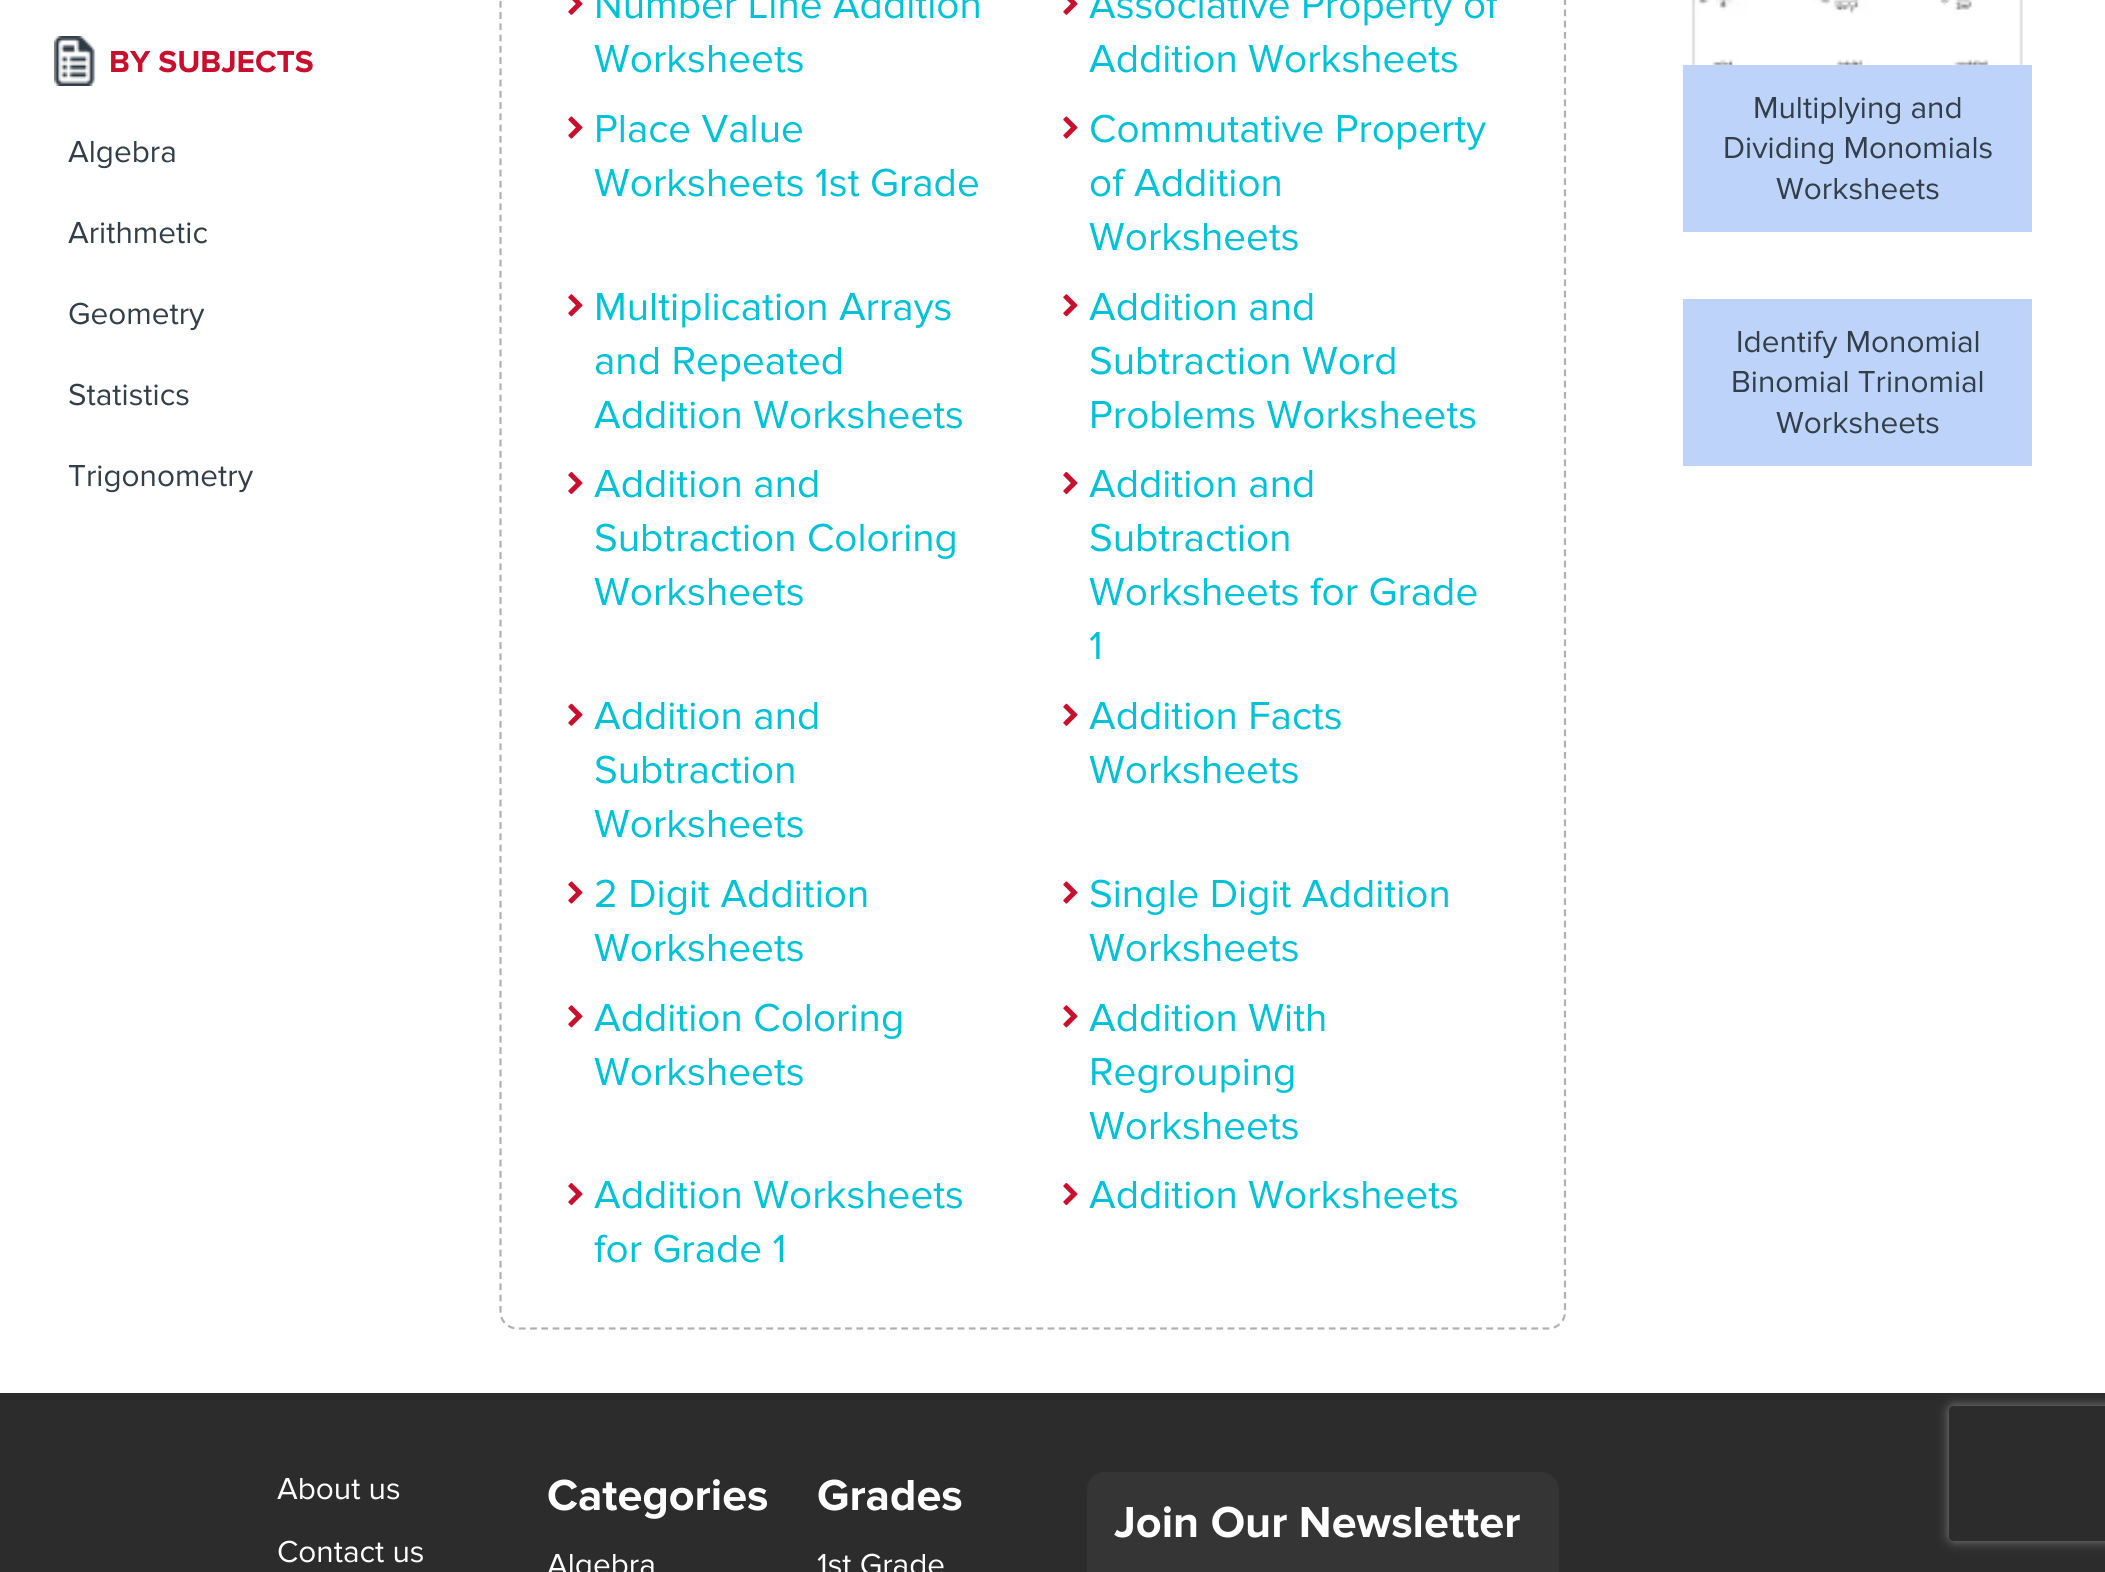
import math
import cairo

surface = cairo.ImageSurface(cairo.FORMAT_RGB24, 2105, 1572)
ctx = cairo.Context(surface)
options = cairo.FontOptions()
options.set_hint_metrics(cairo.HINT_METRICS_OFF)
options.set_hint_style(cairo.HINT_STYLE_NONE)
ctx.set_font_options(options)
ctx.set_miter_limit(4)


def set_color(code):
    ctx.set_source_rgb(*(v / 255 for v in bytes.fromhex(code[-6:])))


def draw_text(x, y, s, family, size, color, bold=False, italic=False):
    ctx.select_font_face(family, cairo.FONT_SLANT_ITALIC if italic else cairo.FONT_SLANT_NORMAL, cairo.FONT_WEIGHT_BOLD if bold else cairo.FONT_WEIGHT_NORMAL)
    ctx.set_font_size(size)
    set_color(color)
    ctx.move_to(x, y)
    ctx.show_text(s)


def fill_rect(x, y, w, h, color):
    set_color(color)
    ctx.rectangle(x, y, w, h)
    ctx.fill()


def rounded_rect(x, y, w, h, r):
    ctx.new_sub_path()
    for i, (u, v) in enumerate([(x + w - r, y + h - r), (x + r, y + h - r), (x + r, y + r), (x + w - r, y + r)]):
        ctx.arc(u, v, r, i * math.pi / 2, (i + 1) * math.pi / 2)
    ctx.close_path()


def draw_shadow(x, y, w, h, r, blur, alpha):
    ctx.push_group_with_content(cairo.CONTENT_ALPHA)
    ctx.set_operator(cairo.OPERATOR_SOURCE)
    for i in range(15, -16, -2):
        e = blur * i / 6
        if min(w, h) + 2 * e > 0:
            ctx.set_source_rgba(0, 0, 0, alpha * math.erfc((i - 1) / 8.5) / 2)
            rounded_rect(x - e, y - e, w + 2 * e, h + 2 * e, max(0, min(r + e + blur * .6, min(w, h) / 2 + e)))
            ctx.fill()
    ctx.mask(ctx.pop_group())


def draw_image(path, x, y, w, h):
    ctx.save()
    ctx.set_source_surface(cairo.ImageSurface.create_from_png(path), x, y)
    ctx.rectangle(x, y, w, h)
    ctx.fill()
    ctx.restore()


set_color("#ffffff")
ctx.paint()
draw_image("assets/img1.png", 54, 36, 42, 50)
draw_text(109, 72, "BY SUBJECTS", "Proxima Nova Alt", 31.5, "#c8102e", bold=True)
draw_text(68, 162, "Algebra", "Proxima Nova", 31.5, "#333f48")
draw_text(68, 243, "Arithmetic", "Proxima Nova", 31.5, "#333f48")
draw_text(68, 324, "Geometry", "Proxima Nova", 31.5, "#333f48")
draw_text(68, 405, "Statistics", "Proxima Nova", 31.5, "#333f48")
draw_text(68, 486, "Trigonometry", "Proxima Nova", 31.5, "#333f48")
ctx.new_path()
ctx.move_to(517.5, -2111.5)
ctx.line_to(1548, -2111.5)
ctx.curve_to(1557.5, -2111.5, 1565, -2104, 1565, -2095)
ctx.line_to(1565, 1312)
ctx.curve_to(1565, 1321, 1557.5, 1328.5, 1548, 1328.5)
ctx.line_to(517.5, 1328.5)
ctx.curve_to(508, 1328.5, 500.5, 1321, 500.5, 1312)
ctx.line_to(500.5, -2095)
ctx.curve_to(500.5, -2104, 508, -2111.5, 517.5, -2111.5)
ctx.close_path()
set_color("#b3afaf")
ctx.set_line_width(2.2)
ctx.set_dash([6.75, 4.5])
ctx.stroke()
draw_image("assets/img2.png", 568, 0, 15, 15)
draw_text(594, 18, "Number Line Addition", "Proxima Nova", 40.5, "#00c1d5")
draw_text(594, 72, "Worksheets", "Proxima Nova", 40.5, "#00c1d5")
draw_image("assets/img2.png", 1063, 0, 15, 15)
draw_text(1089, 18, "Associative Property of", "Proxima Nova", 40.5, "#00c1d5")
draw_text(1089, 72, "Addition Worksheets", "Proxima Nova", 40.5, "#00c1d5")
draw_image("assets/img3.png", 568, 116, 15, 23)
draw_text(594, 142, "Place Value", "Proxima Nova", 40.5, "#00c1d5")
draw_text(594, 196, "Worksheets 1st Grade", "Proxima Nova", 40.5, "#00c1d5")
draw_image("assets/img3.png", 1063, 116, 15, 23)
draw_text(1089, 142, "Commutative Property", "Proxima Nova", 40.5, "#00c1d5")
draw_text(1089, 196, "of Addition", "Proxima Nova", 40.5, "#00c1d5")
draw_text(1089, 250, "Worksheets", "Proxima Nova", 40.5, "#00c1d5")
draw_image("assets/img4.png", 568, 294, 15, 23)
draw_text(594, 320, "Multiplication Arrays", "Proxima Nova", 40.5, "#00c1d5")
draw_text(594, 374, "and Repeated", "Proxima Nova", 40.5, "#00c1d5")
draw_text(594, 428, "Addition Worksheets", "Proxima Nova", 40.5, "#00c1d5")
draw_image("assets/img4.png", 1063, 294, 15, 23)
draw_text(1089, 320, "Addition and", "Proxima Nova", 40.5, "#00c1d5")
draw_text(1089, 374, "Subtraction Word", "Proxima Nova", 40.5, "#00c1d5")
draw_text(1089, 428, "Problems Worksheets", "Proxima Nova", 40.5, "#00c1d5")
draw_image("assets/img5.png", 568, 471, 15, 24)
draw_text(594, 497, "Addition and", "Proxima Nova", 40.5, "#00c1d5")
draw_text(594, 551, "Subtraction Coloring", "Proxima Nova", 40.5, "#00c1d5")
draw_text(594, 605, "Worksheets", "Proxima Nova", 40.5, "#00c1d5")
draw_image("assets/img5.png", 1063, 471, 15, 24)
draw_text(1089, 497, "Addition and", "Proxima Nova", 40.5, "#00c1d5")
draw_text(1089, 551, "Subtraction", "Proxima Nova", 40.5, "#00c1d5")
draw_text(1089, 605, "Worksheets for Grade", "Proxima Nova", 40.5, "#00c1d5")
draw_text(1089, 659, "1", "Proxima Nova", 40.5, "#00c1d5")
draw_image("assets/img6.png", 568, 703, 15, 23)
draw_text(594, 729, "Addition and", "Proxima Nova", 40.5, "#00c1d5")
draw_text(594, 783, "Subtraction", "Proxima Nova", 40.5, "#00c1d5")
draw_text(594, 837, "Worksheets", "Proxima Nova", 40.5, "#00c1d5")
draw_image("assets/img6.png", 1063, 703, 15, 23)
draw_text(1089, 729, "Addition Facts", "Proxima Nova", 40.5, "#00c1d5")
draw_text(1089, 783, "Worksheets", "Proxima Nova", 40.5, "#00c1d5")
draw_image("assets/img3.png", 568, 881, 15, 23)
draw_text(594, 907, "2 Digit Addition", "Proxima Nova", 40.5, "#00c1d5")
draw_text(594, 961, "Worksheets", "Proxima Nova", 40.5, "#00c1d5")
draw_image("assets/img3.png", 1063, 881, 15, 23)
draw_text(1089, 907, "Single Digit Addition", "Proxima Nova", 40.5, "#00c1d5")
draw_text(1089, 961, "Worksheets", "Proxima Nova", 40.5, "#00c1d5")
draw_image("assets/img4.png", 568, 1005, 15, 23)
draw_text(594, 1031, "Addition Coloring", "Proxima Nova", 40.5, "#00c1d5")
draw_text(594, 1085, "Worksheets", "Proxima Nova", 40.5, "#00c1d5")
draw_image("assets/img4.png", 1063, 1005, 15, 23)
draw_text(1089, 1031, "Addition With", "Proxima Nova", 40.5, "#00c1d5")
draw_text(1089, 1085, "Regrouping", "Proxima Nova", 40.5, "#00c1d5")
draw_text(1089, 1139, "Worksheets", "Proxima Nova", 40.5, "#00c1d5")
draw_image("assets/img5.png", 568, 1182, 15, 24)
draw_text(594, 1208, "Addition Worksheets", "Proxima Nova", 40.5, "#00c1d5")
draw_text(594, 1262, "for Grade 1", "Proxima Nova", 40.5, "#00c1d5")
draw_image("assets/img5.png", 1063, 1182, 15, 24)
draw_text(1089, 1208, "Addition Worksheets", "Proxima Nova", 40.5, "#00c1d5")
draw_image("assets/img7.png", 1691, 0, 332, 65)
fill_rect(1683, 65, 349, 167, "#bdd3f9")
draw_text(1753, 118, "Multiplying and", "Proxima Nova", 31.5, "#333f48")
draw_text(1723, 158, "Dividing Monomials", "Proxima Nova", 31.5, "#333f48")
draw_text(1776, 199, "Worksheets", "Proxima Nova", 31.5, "#333f48")
fill_rect(1683, 299, 349, 167, "#bdd3f9")
draw_text(1736, 352, "Identify Monomial", "Proxima Nova", 31.5, "#333f48")
draw_text(1731, 392, "Binomial Trinomial", "Proxima Nova", 31.5, "#333f48")
draw_text(1776, 433, "Worksheets", "Proxima Nova", 31.5, "#333f48")
fill_rect(0, 1393, 2105, 179, "#2d2c2c")
draw_text(277, 1499, "About us", "Proxima Nova", 31.5, "#ffffff")
draw_text(277, 1562, "Contact us", "Proxima Nova", 31.5, "#ffffff")
draw_text(547, 1510, "Categories", "Proxima Nova", 45, "#ffffff", bold=True)
draw_text(547, 1575, "Algebra", "Proxima Nova", 31.5, "#ffffff")
draw_text(817, 1510, "Grades", "Proxima Nova", 45, "#ffffff", bold=True)
draw_text(817, 1575, "1st Grade", "Proxima Nova", 31.5, "#ffffff")
set_color("#353535")
rounded_rect(1087, 1472, 472, 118, 18)
ctx.fill()
draw_text(1114, 1537, "Join Our Newsletter", "Proxima Nova", 45, "#ffffff", bold=True)
ctx.save()
ctx.set_fill_rule(cairo.FILL_RULE_EVEN_ODD)
ctx.new_path()
ctx.move_to(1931, 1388)
ctx.line_to(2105, 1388)
ctx.line_to(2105, 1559)
ctx.line_to(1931, 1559)
ctx.close_path()
ctx.move_to(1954, 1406)
ctx.line_to(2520, 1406)
ctx.curve_to(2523, 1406, 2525, 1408, 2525, 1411)
ctx.line_to(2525, 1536)
ctx.curve_to(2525, 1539, 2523, 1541, 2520, 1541)
ctx.line_to(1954, 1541)
ctx.curve_to(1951, 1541, 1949, 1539, 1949, 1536)
ctx.line_to(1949, 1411)
ctx.curve_to(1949, 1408, 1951, 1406, 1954, 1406)
ctx.close_path()
ctx.clip()
set_color("#808080")
draw_shadow(1949, 1406, 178, 135, 5, 5.5, 1)
ctx.restore()
surface.write_to_png("output.png")
